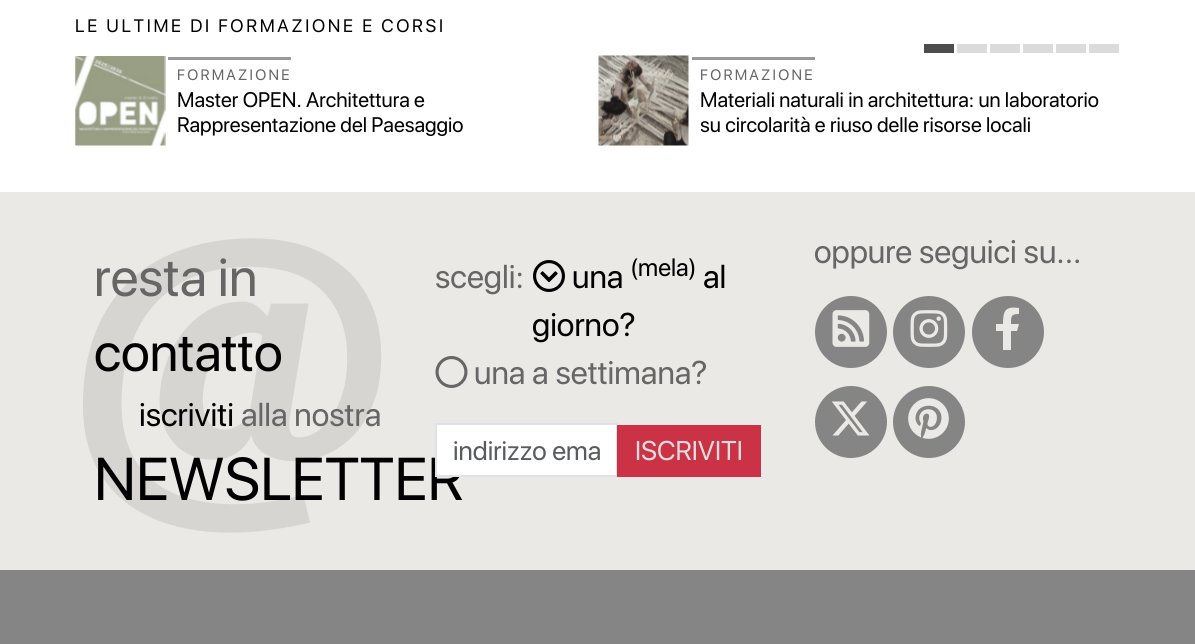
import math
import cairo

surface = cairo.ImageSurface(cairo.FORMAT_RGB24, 1195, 644)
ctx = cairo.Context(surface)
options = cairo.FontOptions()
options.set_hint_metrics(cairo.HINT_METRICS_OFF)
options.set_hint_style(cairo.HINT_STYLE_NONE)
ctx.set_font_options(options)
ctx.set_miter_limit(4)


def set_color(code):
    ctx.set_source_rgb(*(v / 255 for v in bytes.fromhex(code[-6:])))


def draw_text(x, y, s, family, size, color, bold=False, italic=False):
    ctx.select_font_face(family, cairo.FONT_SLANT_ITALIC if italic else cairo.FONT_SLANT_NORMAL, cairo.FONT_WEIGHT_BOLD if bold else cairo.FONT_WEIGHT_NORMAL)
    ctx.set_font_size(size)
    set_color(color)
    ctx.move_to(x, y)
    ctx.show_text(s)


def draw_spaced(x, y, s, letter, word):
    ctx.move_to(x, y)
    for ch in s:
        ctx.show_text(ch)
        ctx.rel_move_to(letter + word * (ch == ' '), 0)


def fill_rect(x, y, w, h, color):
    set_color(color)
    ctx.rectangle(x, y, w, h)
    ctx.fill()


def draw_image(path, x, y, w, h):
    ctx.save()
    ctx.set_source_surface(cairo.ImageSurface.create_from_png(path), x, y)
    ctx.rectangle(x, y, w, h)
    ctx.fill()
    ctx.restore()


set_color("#ffffff")
ctx.paint()
ctx.select_font_face("SF Pro Display")
ctx.set_font_size(18)
set_color("#000000")
draw_spaced(75, 32, "LE ULTIME DI FORMAZIONE E CORSI", 2.7, 0)
fill_rect(924, 44, 30, 9, "#4d4d4d")
fill_rect(957, 44, 30, 9, "#dbdbdb")
fill_rect(990, 44, 30, 9, "#dbdbdb")
fill_rect(1023, 44, 30, 9, "#dbdbdb")
fill_rect(1056, 44, 30, 9, "#dbdbdb")
fill_rect(1089, 44, 30, 9, "#dbdbdb")
draw_image("assets/img1.png", 75, 56, 91, 90)
fill_rect(168, 57, 123, 3, "#999999")
ctx.set_font_size(15)
set_color("#666666")
draw_spaced(177, 80, "FORMAZIONE", 2.25, 0)
draw_text(177, 107, "Master OPEN. Architettura e", "SF Pro Display", 21, "#000000")
draw_text(177, 132, "Rappresentazione del Paesaggio", "SF Pro Display", 21, "#000000")
draw_image("assets/img2.png", 598, 55, 91, 91)
fill_rect(692, 57, 123, 3, "#999999")
ctx.set_font_size(15)
set_color("#666666")
draw_spaced(700, 80, "FORMAZIONE", 2.25, 0)
draw_text(700, 107, "Materiali naturali in architettura: un laboratorio", "SF Pro Display", 21, "#000000")
ctx.save()
ctx.rectangle(701, 87, 405, 51)
ctx.clip()
draw_text(700, 132, "su circolarità e riuso delle risorse locali", "SF Pro Display", 21, "#000000")
ctx.restore()
fill_rect(0, 192, 1195, 378, "#ebe9e5")
draw_image("assets/img3.png", 83, 238, 299, 295)
draw_text(814, 263, "oppure seguici su...", "SF Pro Display", 33, "#666666")
set_color("#858585")
ctx.new_path()
ctx.arc(851, 332, 36, 0, 2 * math.pi)
ctx.fill()
draw_image("assets/img4.png", 832, 310, 38, 37)
ctx.arc(929, 332, 36, 0, 2 * math.pi)
ctx.fill()
draw_image("assets/img5.png", 910, 310, 38, 37)
ctx.arc(1008, 332, 36, 0, 2 * math.pi)
ctx.fill()
set_color("#ebe9e5")
ctx.new_path()
ctx.move_to(1017, 331)
ctx.line_to(1019, 324)
ctx.line_to(1011, 324)
ctx.curve_to(1011, 316, 1011, 314, 1019, 314)
ctx.line_to(1019, 308)
ctx.curve_to(1005, 306, 1003, 311, 1003, 324)
ctx.line_to(996, 324)
ctx.line_to(996, 331)
ctx.line_to(1003, 331)
ctx.line_to(1003, 350)
ctx.line_to(1011, 350)
ctx.line_to(1011, 331)
ctx.close_path()
ctx.fill()
set_color("#858585")
ctx.arc(851, 422, 36, 0, 2 * math.pi)
ctx.fill()
draw_image("assets/img6.png", 831, 401, 39, 35)
ctx.arc(929, 422, 36, 0, 2 * math.pi)
ctx.fill()
draw_image("assets/img7.png", 908, 398, 41, 41)
draw_text(94, 296, "resta in", "SF Pro Display", 54, "#666666")
draw_text(94, 371, "contatto", "SF Pro Display", 54, "#000000")
draw_text(139, 426, "iscriviti", "SF Pro Display", 33, "#000000")
draw_text(241, 426, "alla nostra", "SF Pro Display", 33, "#666666")
draw_text(94, 500, "NEWSLETTER", "SF Pro Display", 60, "#000000")
draw_image("assets/img8.png", 533, 260, 32, 32)
draw_text(572, 288, "una", "SF Pro Display", 33, "#000000")
draw_text(630, 276, "(mela)", "SF Pro Display", 25, "#000000")
draw_text(703, 288, "al", "SF Pro Display", 33, "#000000")
draw_text(532, 336, "giorno?", "SF Pro Display", 33, "#000000")
draw_image("assets/img9.png", 435, 356, 33, 32)
draw_text(474, 384, "una a settimana?", "SF Pro Display", 33, "#666666")
draw_text(435, 288, "scegli:", "SF Pro Display", 33, "#666666")
set_color("#ffffff")
ctx.rectangle(436, 424, 181, 52)
ctx.fill_preserve()
set_color("#dee2e6")
ctx.stroke()
draw_text(453, 460, "indirizzo ema", "SF Pro Display", 27, "#595c5f")
fill_rect(617, 425, 144, 52, "#cb3245")
draw_text(635, 460, "ISCRIVITI", "SF Pro Display", 27, "#dddddd")
fill_rect(0, 570, 1195, 74, "#858585")
surface.write_to_png("output.png")
